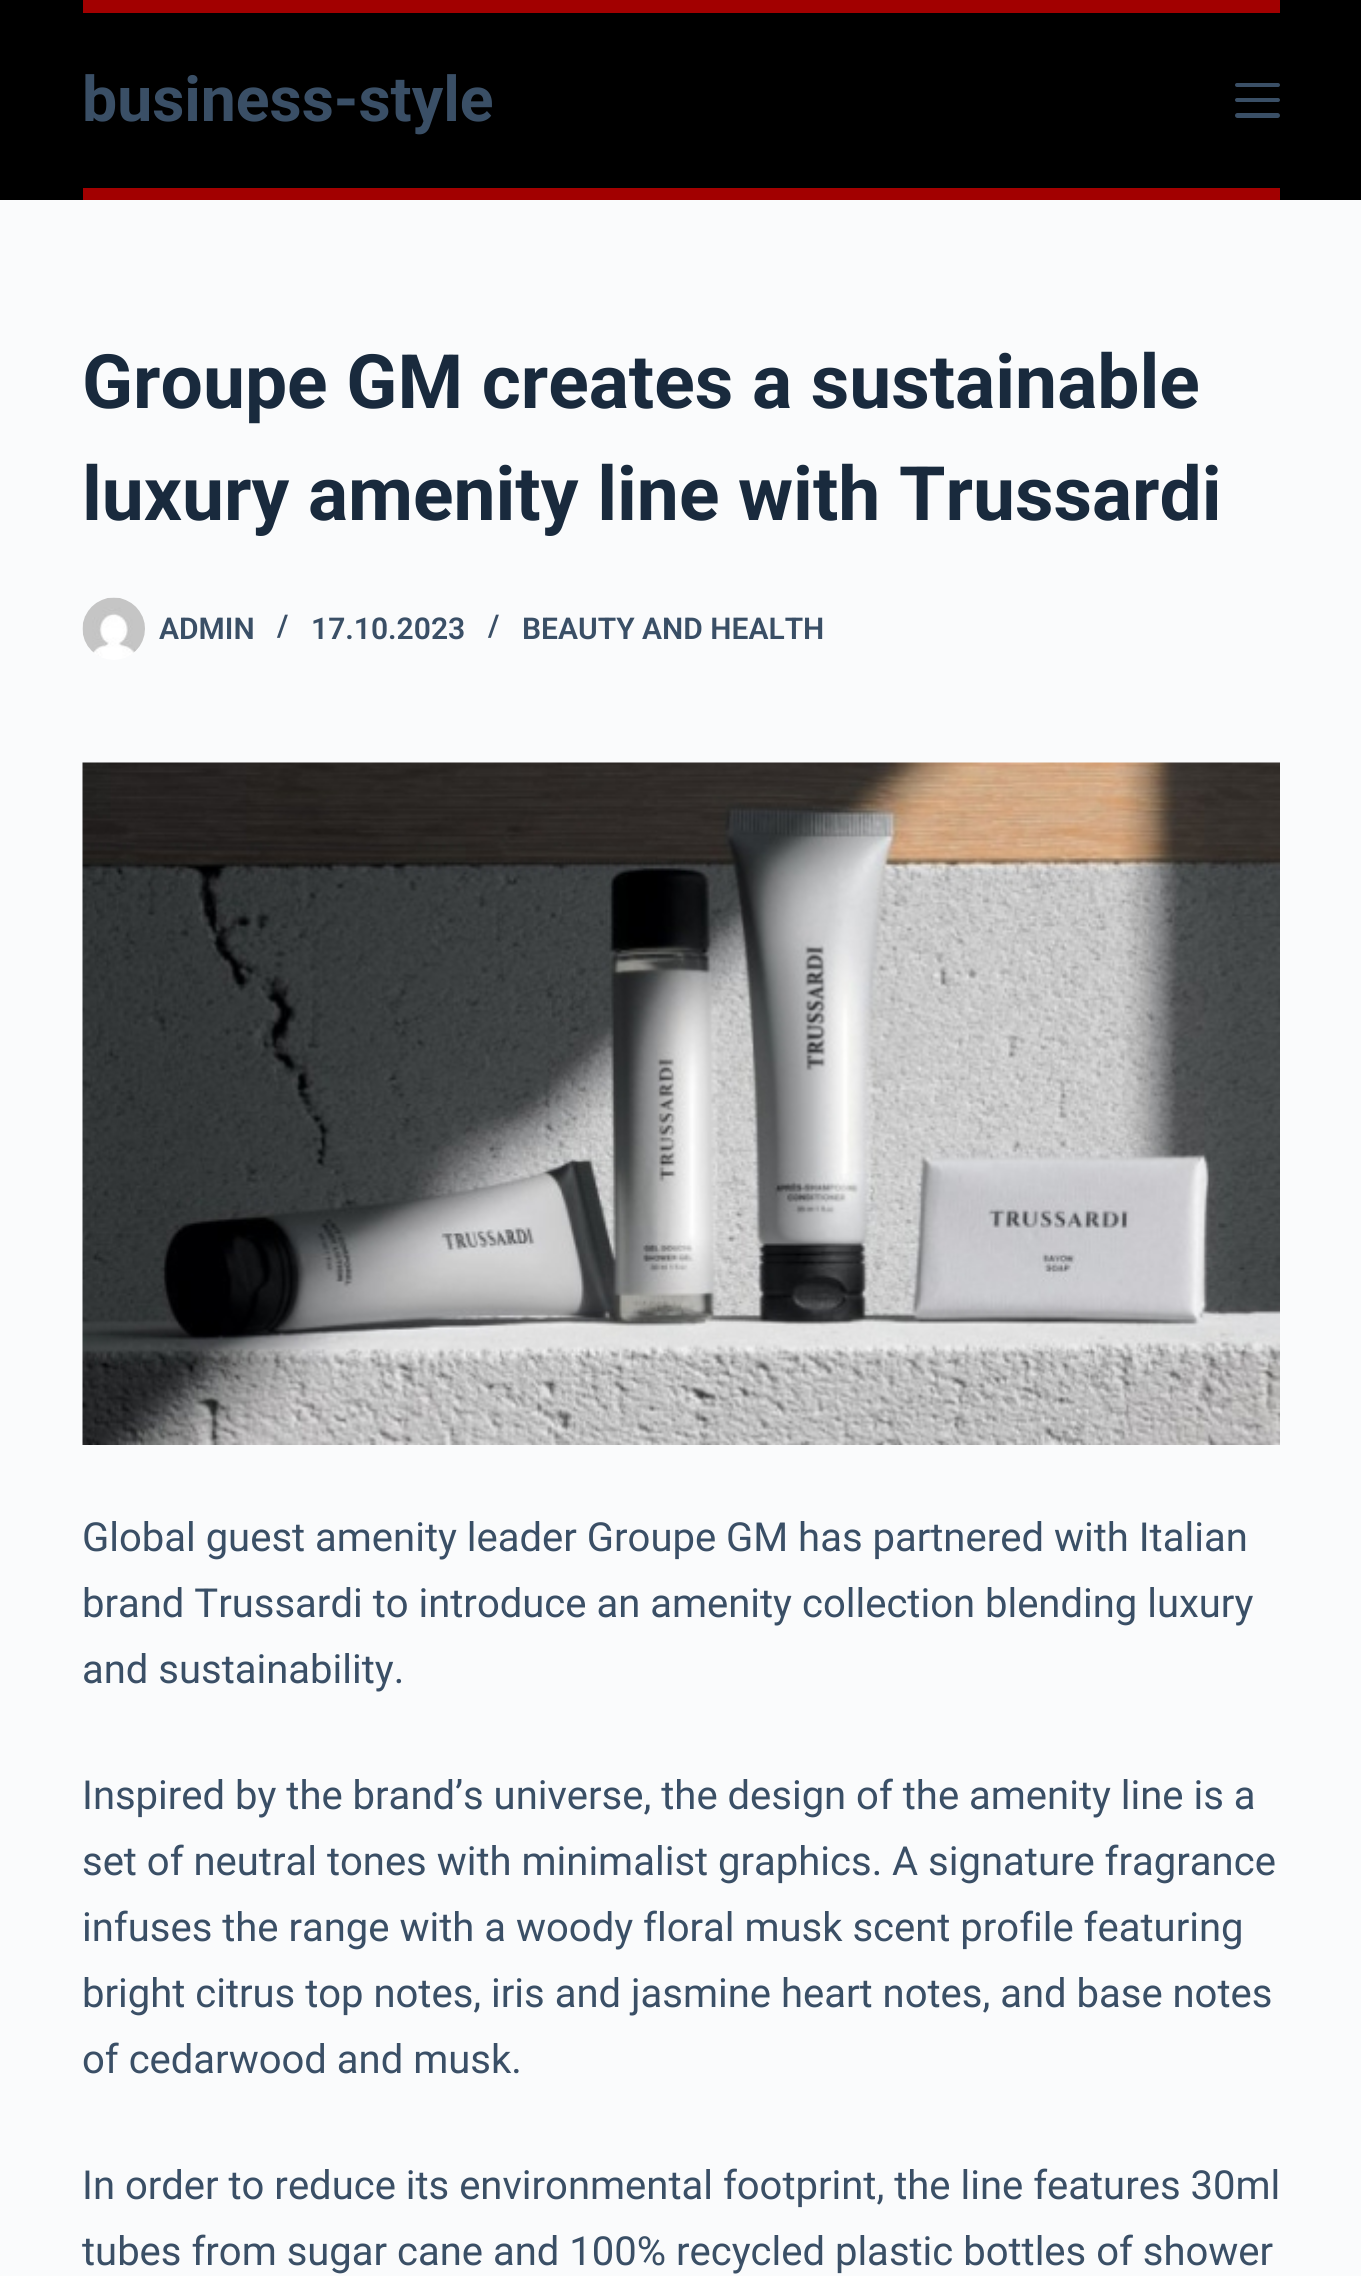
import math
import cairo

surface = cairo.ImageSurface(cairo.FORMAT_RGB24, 1361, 2276)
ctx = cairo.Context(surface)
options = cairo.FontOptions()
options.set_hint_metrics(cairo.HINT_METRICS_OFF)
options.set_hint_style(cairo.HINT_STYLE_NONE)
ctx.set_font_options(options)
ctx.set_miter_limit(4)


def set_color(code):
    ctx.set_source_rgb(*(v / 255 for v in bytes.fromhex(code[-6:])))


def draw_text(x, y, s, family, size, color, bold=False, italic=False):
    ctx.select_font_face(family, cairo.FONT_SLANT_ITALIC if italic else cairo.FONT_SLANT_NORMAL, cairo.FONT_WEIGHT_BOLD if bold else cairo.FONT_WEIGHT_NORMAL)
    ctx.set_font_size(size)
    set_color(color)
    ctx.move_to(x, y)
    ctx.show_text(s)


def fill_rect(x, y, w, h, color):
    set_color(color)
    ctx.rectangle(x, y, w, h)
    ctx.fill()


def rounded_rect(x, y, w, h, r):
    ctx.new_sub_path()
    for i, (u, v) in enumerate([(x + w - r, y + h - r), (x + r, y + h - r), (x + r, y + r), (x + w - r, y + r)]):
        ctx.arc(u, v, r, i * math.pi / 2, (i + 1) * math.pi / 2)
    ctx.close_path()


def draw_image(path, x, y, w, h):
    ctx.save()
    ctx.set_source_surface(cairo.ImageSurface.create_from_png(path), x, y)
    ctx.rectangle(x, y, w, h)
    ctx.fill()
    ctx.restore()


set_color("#fafbfc")
ctx.paint()
fill_rect(0, 0, 1361, 200, "#000000")
fill_rect(83, 0, 1197, 13, "#a20000")
fill_rect(83, 188, 1197, 12, "#a20000")
draw_text(82, 121, "business-style", "Roboto", 62.5, "#3a4f66", bold=True)
rounded_rect(1235, 83, 45, 4, 2)
ctx.fill()
rounded_rect(1235, 98, 45, 4, 2)
ctx.fill()
rounded_rect(1235, 113, 45, 5, 2.5)
ctx.fill()
draw_text(82, 408, "Groupe GM creates a sustainable", "Roboto", 75, "#192a3d", bold=True)
draw_text(82, 520, "luxury amenity line with Trussardi", "Roboto", 75, "#192a3d", bold=True)
draw_image("assets/img1.png", 82, 597, 63, 63)
draw_text(159, 639, "ADMIN", "Roboto SemiBold", 30, "#3a4f66")
draw_text(277, 636, "/", "Roboto SemiBold", 30, "#3a4f66")
draw_text(311, 639, "17.10.2023", "Roboto SemiBold", 30, "#3a4f66")
draw_text(488, 636, "/", "Roboto SemiBold", 30, "#3a4f66")
draw_text(522, 639, "BEAUTY AND HEALTH", "Roboto SemiBold", 30, "#3a4f66")
draw_image("assets/img2.png", 82, 762, 1198, 683)
draw_text(82, 1551, "Global guest amenity leader Groupe GM has partnered with Italian", "Roboto", 40, "#3a4f66")
draw_text(82, 1617, "brand Trussardi to introduce an amenity collection blending luxury", "Roboto", 40, "#3a4f66")
draw_text(82, 1683, "and sustainability.", "Roboto", 40, "#3a4f66")
draw_text(82, 1809, "Inspired by the brand’s universe, the design of the amenity line is a", "Roboto", 40, "#3a4f66")
draw_text(82, 1875, "set of neutral tones with minimalist graphics. A signature fragrance", "Roboto", 40, "#3a4f66")
draw_text(82, 1941, "infuses the range with a woody floral musk scent profile featuring", "Roboto", 40, "#3a4f66")
draw_text(82, 2007, "bright citrus top notes, iris and jasmine heart notes, and base notes", "Roboto", 40, "#3a4f66")
draw_text(82, 2073, "of cedarwood and musk.", "Roboto", 40, "#3a4f66")
draw_text(82, 2199, "In order to reduce its environmental footprint, the line features 30ml", "Roboto", 40, "#3a4f66")
draw_text(82, 2265, "tubes from sugar cane and 100% recycled plastic bottles of shower", "Roboto", 40, "#3a4f66")
surface.write_to_png("output.png")
